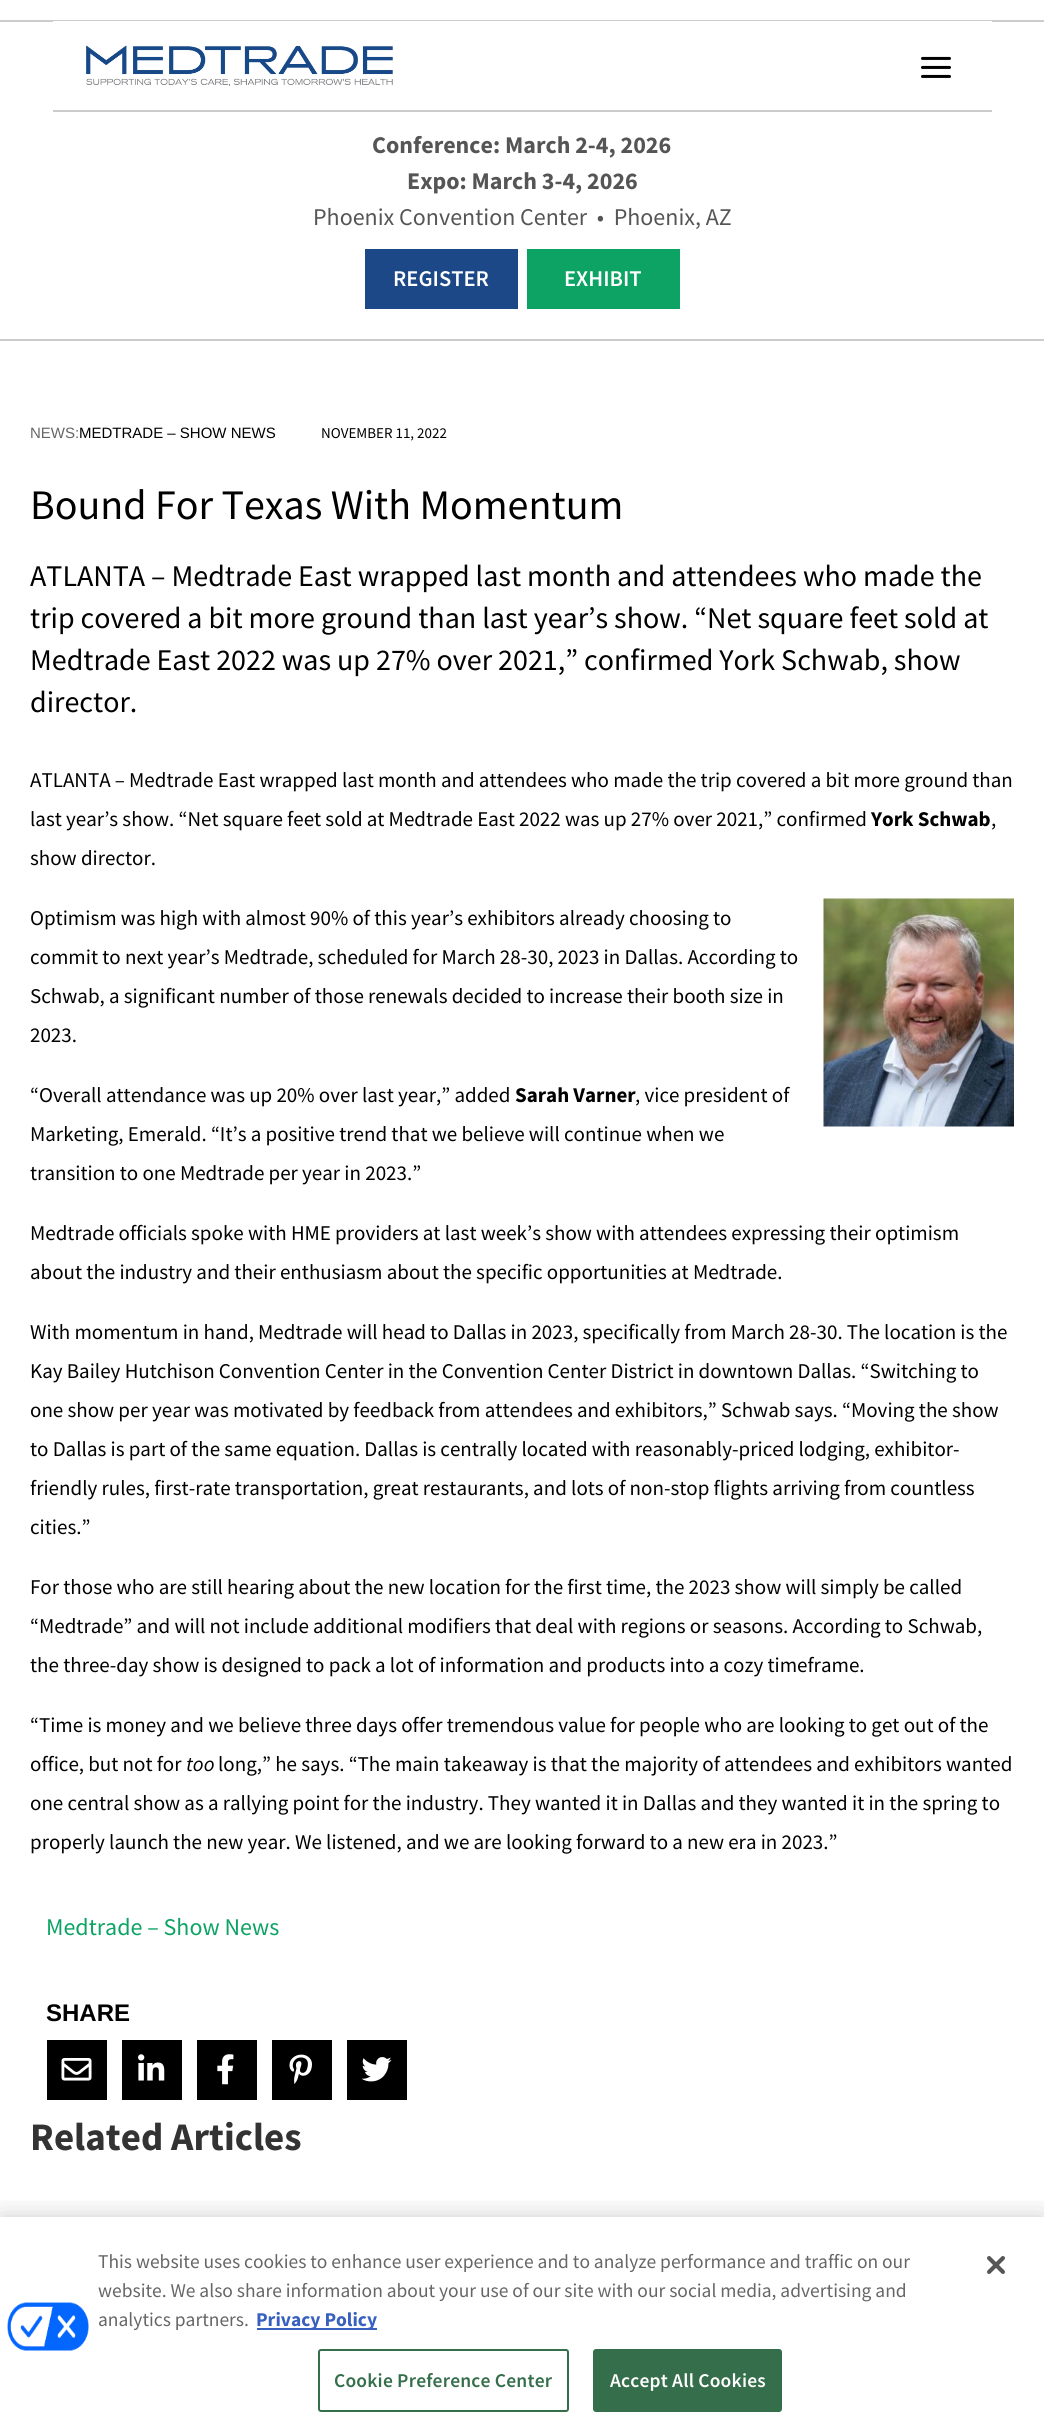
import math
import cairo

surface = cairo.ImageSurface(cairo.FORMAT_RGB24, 1044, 2435)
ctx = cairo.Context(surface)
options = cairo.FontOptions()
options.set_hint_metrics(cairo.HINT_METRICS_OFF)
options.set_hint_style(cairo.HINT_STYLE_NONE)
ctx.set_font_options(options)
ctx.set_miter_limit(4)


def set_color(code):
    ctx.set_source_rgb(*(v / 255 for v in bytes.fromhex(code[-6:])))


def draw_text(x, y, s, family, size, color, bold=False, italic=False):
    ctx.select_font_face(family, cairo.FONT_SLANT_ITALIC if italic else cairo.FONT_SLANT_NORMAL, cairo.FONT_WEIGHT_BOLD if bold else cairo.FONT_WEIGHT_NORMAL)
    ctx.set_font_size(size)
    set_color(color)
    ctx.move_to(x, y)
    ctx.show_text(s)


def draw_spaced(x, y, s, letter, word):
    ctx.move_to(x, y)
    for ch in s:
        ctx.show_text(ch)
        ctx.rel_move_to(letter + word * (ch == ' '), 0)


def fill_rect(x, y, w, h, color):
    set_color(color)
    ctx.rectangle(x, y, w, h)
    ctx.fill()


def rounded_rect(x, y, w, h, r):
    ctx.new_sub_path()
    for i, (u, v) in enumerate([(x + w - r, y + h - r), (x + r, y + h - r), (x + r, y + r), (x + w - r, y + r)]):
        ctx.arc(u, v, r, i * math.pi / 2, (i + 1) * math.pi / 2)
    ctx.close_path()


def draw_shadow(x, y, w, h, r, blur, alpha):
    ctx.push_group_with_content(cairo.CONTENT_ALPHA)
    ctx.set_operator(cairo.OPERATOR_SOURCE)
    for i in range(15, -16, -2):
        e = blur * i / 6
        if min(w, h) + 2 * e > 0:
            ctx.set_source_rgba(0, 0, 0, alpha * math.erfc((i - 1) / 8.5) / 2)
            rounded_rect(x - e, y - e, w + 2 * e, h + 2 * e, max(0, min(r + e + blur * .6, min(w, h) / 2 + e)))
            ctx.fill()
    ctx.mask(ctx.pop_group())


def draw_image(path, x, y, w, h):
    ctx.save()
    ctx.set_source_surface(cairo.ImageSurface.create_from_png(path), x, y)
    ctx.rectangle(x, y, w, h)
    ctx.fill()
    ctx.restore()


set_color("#ffffff")
ctx.paint()
fill_rect(0, 339, 1044, 2, "#cccccc")
fill_rect(0, 20, 1044, 2, "#cccccc")
fill_rect(53, 21, 939, 1, "#ffffff")
fill_rect(53, 110, 939, 2, "#cccccc")
draw_image("assets/img1.png", 86, 45, 307, 41)
draw_image("assets/img2.png", 921, 56, 30, 22)
draw_text(372, 153, "Conference: March 2-4, 2026", "Source Sans Pro", 24, "#555555", bold=True)
draw_text(407, 189, "Expo: March 3-4, 2026", "Source Sans Pro", 24, "#555555", bold=True)
draw_text(313, 225, "Phoenix Convention Center  •  Phoenix, AZ", "Source Sans Pro", 24, "#555555")
fill_rect(365, 249, 153, 60, "#1d4887")
draw_text(393, 286, "REGISTER", "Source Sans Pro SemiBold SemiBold", 22.5, "#ffffff")
fill_rect(527, 249, 153, 60, "#0ca364")
draw_text(564, 286, "EXHIBIT", "Source Sans Pro SemiBold SemiBold", 22.5, "#ffffff")
draw_text(30, 438, "NEWS:", "Liberation Sans", 15, "#666666")
draw_text(79, 438, "MEDTRADE – SHOW NEWS", "Liberation Sans", 15, "#000000")
draw_text(321, 438, "NOVEMBER 11, 2022", "Source Sans Pro", 15, "#000000")
draw_text(30, 519, "Bound For Texas With Momentum", "Source Sans Pro", 42, "#000000")
draw_text(30, 586, "ATLANTA – Medtrade East wrapped last month and attendees who made the", "Source Sans Pro", 30, "#000000")
draw_text(30, 628, "trip covered a bit more ground than last year’s show. “Net square feet sold at", "Source Sans Pro", 30, "#000000")
draw_text(30, 670, "Medtrade East 2022 was up 27% over 2021,” confirmed York Schwab, show", "Source Sans Pro", 30, "#000000")
draw_text(30, 712, "director.", "Source Sans Pro", 30, "#000000")
draw_text(30, 787, "ATLANTA – Medtrade East wrapped last month and attendees who made the trip covered a bit more ground than", "Source Sans Pro", 21, "#000000")
draw_text(30, 826, "last year’s show. “Net square feet sold at Medtrade East 2022 was up 27% over 2021,” confirmed", "Source Sans Pro", 21, "#000000")
draw_text(871, 826, "York Schwab", "Source Sans Pro", 21, "#000000", bold=True)
draw_text(991, 826, ",", "Source Sans Pro", 21, "#000000")
draw_text(30, 865, "show director.", "Source Sans Pro", 21, "#000000")
draw_text(30, 925, "Optimism was high with almost 90% of this year’s exhibitors already choosing to", "Source Sans Pro", 21, "#000000")
draw_image("assets/img3.png", 823, 898, 191, 229)
draw_text(30, 964, "commit to next year’s Medtrade, scheduled for March 28-30, 2023 in Dallas. According to", "Source Sans Pro", 21, "#000000")
draw_text(30, 1003, "Schwab, a significant number of those renewals decided to increase their booth size in", "Source Sans Pro", 21, "#000000")
draw_text(30, 1042, "2023.", "Source Sans Pro", 21, "#000000")
draw_text(30, 1102, "“Overall attendance was up 20% over last year,” added", "Source Sans Pro", 21, "#000000")
draw_text(515, 1102, "Sarah Varner", "Source Sans Pro", 21, "#000000", bold=True)
draw_text(635, 1102, ", vice president of", "Source Sans Pro", 21, "#000000")
draw_text(30, 1141, "Marketing, Emerald. “It’s a positive trend that we believe will continue when we", "Source Sans Pro", 21, "#000000")
draw_text(30, 1180, "transition to one Medtrade per year in 2023.”", "Source Sans Pro", 21, "#000000")
draw_text(30, 1240, "Medtrade officials spoke with HME providers at last week’s show with attendees expressing their optimism", "Source Sans Pro", 21, "#000000")
draw_text(30, 1279, "about the industry and their enthusiasm about the specific opportunities at Medtrade.", "Source Sans Pro", 21, "#000000")
draw_text(30, 1339, "With momentum in hand, Medtrade will head to Dallas in 2023, specifically from March 28-30. The location is the", "Source Sans Pro", 21, "#000000")
draw_text(30, 1378, "Kay Bailey Hutchison Convention Center in the Convention Center District in downtown Dallas. “Switching to", "Source Sans Pro", 21, "#000000")
draw_text(30, 1417, "one show per year was motivated by feedback from attendees and exhibitors,” Schwab says. “Moving the show", "Source Sans Pro", 21, "#000000")
draw_text(30, 1456, "to Dallas is part of the same equation. Dallas is centrally located with reasonably-priced lodging, exhibitor-", "Source Sans Pro", 21, "#000000")
draw_text(30, 1495, "friendly rules, first-rate transportation, great restaurants, and lots of non-stop flights arriving from countless", "Source Sans Pro", 21, "#000000")
draw_text(30, 1534, "cities.”", "Source Sans Pro", 21, "#000000")
draw_text(30, 1594, "For those who are still hearing about the new location for the first time, the 2023 show will simply be called", "Source Sans Pro", 21, "#000000")
draw_text(30, 1633, "“Medtrade” and will not include additional modifiers that deal with regions or seasons. According to Schwab,", "Source Sans Pro", 21, "#000000")
draw_text(30, 1672, "the three-day show is designed to pack a lot of information and products into a cozy timeframe.", "Source Sans Pro", 21, "#000000")
draw_text(30, 1732, "“Time is money and we believe three days offer tremendous value for people who are looking to get out of the", "Source Sans Pro", 21, "#000000")
draw_text(30, 1771, "office, but not for", "Source Sans Pro", 21, "#000000")
draw_text(186, 1771, "too", "Source Sans Pro", 21, "#000000", italic=True)
draw_text(218, 1771, "long,” he says. “The main takeaway is that the majority of attendees and exhibitors wanted", "Source Sans Pro", 21, "#000000")
draw_text(30, 1810, "one central show as a rallying point for the industry. They wanted it in Dallas and they wanted it in the spring to", "Source Sans Pro", 21, "#000000")
draw_text(30, 1849, "properly launch the new year. We listened, and we are looking forward to a new era in 2023.”", "Source Sans Pro", 21, "#000000")
draw_text(46, 1935, "Medtrade – Show News", "Source Sans Pro", 24, "#0ca364")
draw_text(46, 2021, "SHARE", "Liberation Sans", 24, "#000000", bold=True)
fill_rect(47, 2040, 60, 60, "#000000")
draw_image("assets/img4.png", 61, 2058, 31, 23)
fill_rect(122, 2040, 60, 60, "#000000")
draw_image("assets/img5.png", 138, 2054, 27, 27)
fill_rect(197, 2040, 60, 60, "#000000")
draw_image("assets/img6.png", 217, 2054, 17, 31)
fill_rect(272, 2040, 60, 60, "#000000")
draw_image("assets/img7.png", 289, 2054, 23, 30)
fill_rect(347, 2040, 60, 60, "#000000")
draw_image("assets/img8.png", 361, 2057, 31, 25)
draw_text(30, 2150, "Related Articles", "Source Sans Pro", 39, "#333333", bold=True)
ctx.save()
ctx.rectangle(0, 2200, 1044, 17)
ctx.clip()
set_color("#000000")
draw_shadow(0, 2217, 1044, 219, 0, 13.5, 0.2)
ctx.restore()
draw_image("assets/img9.png", 7, 2302, 82, 49)
draw_text(98, 2268, "This website uses cookies to enhance user experience and to analyze performance and traffic on our", "Source Sans Pro", 19.5, "#666666")
draw_text(98, 2297, "website. We also share information about your use of our site with our social media, advertising and", "Source Sans Pro", 19.5, "#666666")
draw_text(98, 2326, "analytics partners.", "Source Sans Pro", 19.5, "#666666")
fill_rect(257, 2328, 120, 2, "#3860be")
draw_text(256, 2326, "Privacy Policy", "Source Sans Pro", 19.5, "#3860be", bold=True)
rounded_rect(319, 2350, 249, 61, 2)
set_color("#346e4a")
ctx.stroke()
ctx.select_font_face("Source Sans Pro SemiBold SemiBold")
draw_spaced(334, 2387, "Cookie Preference Center", 0.2, 0)
rounded_rect(594, 2350, 187, 61, 2)
ctx.fill_preserve()
ctx.stroke()
set_color("#ffffff")
draw_spaced(610, 2387, "Accept All Cookies", 0.2, 0)
draw_image("assets/img10.png", 987, 2256, 18, 18)
surface.write_to_png("output.png")
